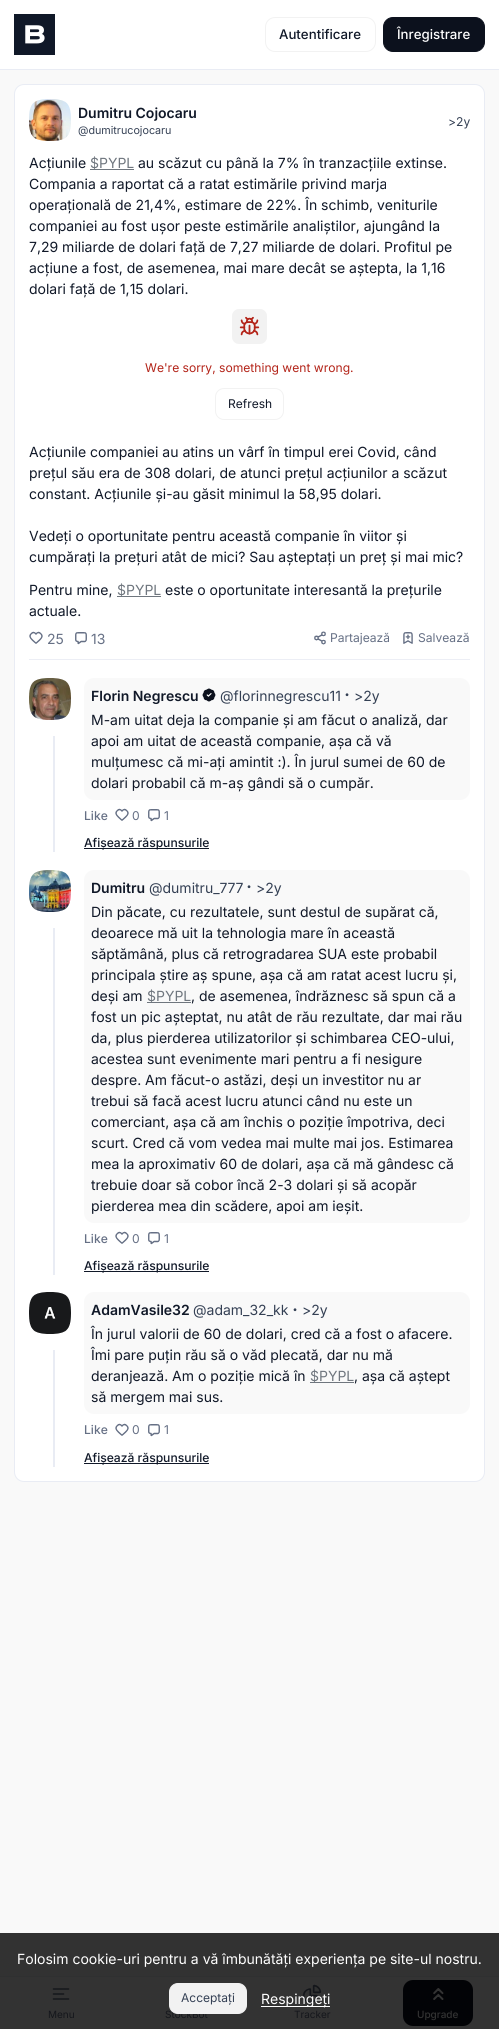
import math
import cairo

surface = cairo.ImageSurface(cairo.FORMAT_RGB24, 499, 2029)
ctx = cairo.Context(surface)
options = cairo.FontOptions()
options.set_hint_metrics(cairo.HINT_METRICS_OFF)
options.set_hint_style(cairo.HINT_STYLE_NONE)
ctx.set_font_options(options)
ctx.set_miter_limit(4)


def set_color(code):
    ctx.set_source_rgb(*(v / 255 for v in bytes.fromhex(code[-6:])))


def draw_text(x, y, s, family, size, color, bold=False, italic=False):
    ctx.select_font_face(family, cairo.FONT_SLANT_ITALIC if italic else cairo.FONT_SLANT_NORMAL, cairo.FONT_WEIGHT_BOLD if bold else cairo.FONT_WEIGHT_NORMAL)
    ctx.set_font_size(size)
    set_color(color)
    ctx.move_to(x, y)
    ctx.show_text(s)


def fill_rect(x, y, w, h, color):
    set_color(color)
    ctx.rectangle(x, y, w, h)
    ctx.fill()


def rounded_rect(x, y, w, h, r):
    ctx.new_sub_path()
    for i, (u, v) in enumerate([(x + w - r, y + h - r), (x + r, y + h - r), (x + r, y + r), (x + w - r, y + r)]):
        ctx.arc(u, v, r, i * math.pi / 2, (i + 1) * math.pi / 2)
    ctx.close_path()


def draw_image(path, x, y, w, h):
    ctx.save()
    ctx.set_source_surface(cairo.ImageSurface.create_from_png(path), x, y)
    ctx.rectangle(x, y, w, h)
    ctx.fill()
    ctx.restore()


set_color("#f9f9f9")
ctx.paint()
fill_rect(0, 1933, 499, 43, "#323232")
fill_rect(0, 0, 499, 69, "#ffffff")
fill_rect(0, 69, 499, 1, "#e9ecf4")
draw_image("assets/img1.png", 14, 14, 41, 41)
rounded_rect(265.5, 17.5, 110, 34, 9.5)
set_color("#f2f2f2")
ctx.set_line_width(1)
ctx.stroke()
draw_text(279, 39, "Autentificare", "Inter Medium", 13.25, "#101828")
set_color("#0c111d")
rounded_rect(383.5, 17.5, 101, 34, 9.5)
ctx.fill_preserve()
ctx.stroke()
draw_text(397, 39, "Înregistrare", "Inter Medium", 13.25, "#ffffff")
rounded_rect(14.5, 84.5, 470, 1397, 9.5)
ctx.fill_preserve()
set_color("#e9ecf4")
ctx.stroke()
draw_image("assets/img2.png", 29, 99, 42, 42)
draw_text(78, 118, "Dumitru Cojocaru", "Inter SemiBold", 14, "#101828")
draw_text(78, 134, "@dumitrucojocaru", "Inter", 10.75, "#344054")
draw_text(448, 126, ">2y", "Inter", 12.1, "#344054")
draw_text(29, 168, "Acțiunile", "Inter", 14, "#101828")
fill_rect(90, 169, 44, 1, "#6f767e")
draw_text(90, 168, "$PYPL", "Inter", 14, "#6f767e")
draw_text(138, 168, "au scăzut cu până la 7% în tranzacțiile extinse.", "Inter", 14, "#101828")
draw_text(29, 189, "Compania a raportat că a ratat estimările privind marja", "Inter", 14, "#101828")
draw_text(29, 210, "operațională de 21,4%, estimare de 22%. În schimb, veniturile", "Inter", 14, "#101828")
draw_text(29, 231, "companiei au fost ușor peste estimările analiștilor, ajungând la", "Inter", 14, "#101828")
draw_text(29, 252, "7,29 miliarde de dolari față de 7,27 miliarde de dolari. Profitul pe", "Inter", 14, "#101828")
draw_text(29, 273, "acțiune a fost, de asemenea, mai mare decât se aștepta, la 1,16", "Inter", 14, "#101828")
draw_text(29, 294, "dolari față de 1,15 dolari.", "Inter", 14, "#101828")
set_color("#f2f2f2")
rounded_rect(232, 309, 35, 35, 7)
ctx.fill()
draw_image("assets/img3.png", 239, 316, 21, 20)
draw_text(145, 372, "We're sorry, something went wrong.", "Inter", 12.1, "#b32318")
rounded_rect(215.5, 388.5, 68, 31, 8.5)
set_color("#f2f2f2")
ctx.stroke()
draw_text(228, 408, "Refresh", "Inter", 12, "#101828")
draw_text(29, 457, "Acțiunile companiei au atins un vârf în timpul erei Covid, când", "Inter", 14, "#101828")
draw_text(29, 478, "prețul său era de 308 dolari, de atunci prețul acțiunilor a scăzut", "Inter", 14, "#101828")
draw_text(29, 499, "constant. Acțiunile și-au găsit minimul la 58,95 dolari.", "Inter", 14, "#101828")
draw_text(29, 541, "Vedeți o oportunitate pentru această companie în viitor și", "Inter", 14, "#101828")
draw_text(29, 562, "cumpărați la prețuri atât de mici? Sau așteptați un preț și mai mic?", "Inter", 14, "#101828")
draw_text(29, 595, "Pentru mine,", "Inter", 14, "#101828")
fill_rect(117, 596, 44, 1, "#6f767e")
draw_text(117, 595, "$PYPL", "Inter", 14, "#6f767e")
draw_text(165, 595, "este o oportunitate interesantă la prețurile", "Inter", 14, "#101828")
draw_text(29, 616, "actuale.", "Inter", 14, "#101828")
draw_image("assets/img4.png", 29, 631, 14, 13)
draw_text(47, 644, "25", "Inter", 14, "#667085")
draw_image("assets/img5.png", 75, 632, 12, 13)
draw_text(91, 644, "13", "Inter", 14, "#667085")
draw_image("assets/img6.png", 314, 631, 12, 14)
draw_text(330, 642, "Partajează", "Inter", 12.1, "#667085")
draw_image("assets/img7.png", 403, 632, 10, 12)
draw_text(418, 642, "Salvează", "Inter", 12.1, "#667085")
fill_rect(29, 659, 441, 1, "#eceef5")
draw_image("assets/img8.png", 29, 678, 42, 42)
set_color("#f9f9f9")
rounded_rect(84, 678, 386, 122, 10)
ctx.fill()
draw_text(91, 701, "Florin Negrescu", "Inter SemiBold", 14, "#101828")
draw_image("assets/img9.png", 202, 688, 14, 14)
draw_text(220, 701, "@florinnegrescu11", "Inter", 14, "#344054")
draw_text(344, 702, "·", "Inter", 21, "#344054")
draw_text(354, 701, ">2y", "Inter", 14, "#344054")
draw_text(91, 725, "M-am uitat deja la companie și am făcut o analiză, dar", "Inter", 14, "#101828")
draw_text(91, 746, "apoi am uitat de această companie, așa că vă", "Inter", 14, "#101828")
draw_text(91, 767, "mulțumesc că mi-ați amintit :). În jurul sumei de 60 de", "Inter", 14, "#101828")
draw_text(91, 788, "dolari probabil că m-aș gândi să o cumpăr.", "Inter", 14, "#101828")
draw_text(84, 820, "Like", "Inter Medium", 12.1, "#667085")
draw_image("assets/img4.png", 115, 808, 14, 13)
draw_text(132, 820, "0", "Inter", 12.1, "#667085")
draw_image("assets/img5.png", 148, 809, 12, 13)
draw_text(164, 820, "1", "Inter", 12.1, "#667085")
fill_rect(84, 848, 125, 1, "#101828")
draw_text(84, 847, "Afișează răspunsurile", "Inter Medium", 12.1, "#101828")
fill_rect(53, 736, 2, 116, "#e9ecf4")
draw_image("assets/img10.png", 29, 870, 42, 42)
set_color("#f9f9f9")
rounded_rect(84, 870, 386, 353, 10)
ctx.fill()
draw_text(91, 893, "Dumitru", "Inter SemiBold", 14, "#101828")
draw_text(149, 893, "@dumitru_777", "Inter", 14, "#344054")
draw_text(246, 894, "·", "Inter", 21, "#344054")
draw_text(256, 893, ">2y", "Inter", 14, "#344054")
draw_text(91, 917, "Din păcate, cu rezultatele, sunt destul de supărat că,", "Inter", 14, "#101828")
draw_text(91, 938, "deoarece mă uit la tehnologia mare în această", "Inter", 14, "#101828")
draw_text(91, 959, "săptămână, plus că retrogradarea SUA este probabil", "Inter", 14, "#101828")
draw_text(91, 980, "principala știre aș spune, așa că am ratat acest lucru și,", "Inter", 14, "#101828")
draw_text(91, 1001, "deși am", "Inter", 14, "#101828")
fill_rect(147, 1002, 44, 1, "#6f767e")
draw_text(147, 1001, "$PYPL", "Inter", 14, "#6f767e")
draw_text(191, 1001, ", de asemenea, îndrăznesc să spun că a", "Inter", 14, "#101828")
draw_text(91, 1022, "fost un pic așteptat, nu atât de rău rezultate, dar mai rău", "Inter", 14, "#101828")
draw_text(91, 1043, "da, plus pierderea utilizatorilor și schimbarea CEO-ului,", "Inter", 14, "#101828")
draw_text(91, 1064, "acestea sunt evenimente mari pentru a fi nesigure", "Inter", 14, "#101828")
draw_text(91, 1085, "despre. Am făcut-o astăzi, deși un investitor nu ar", "Inter", 14, "#101828")
draw_text(91, 1106, "trebui să facă acest lucru atunci când nu este un", "Inter", 14, "#101828")
draw_text(91, 1127, "comerciant, așa că am închis o poziție împotriva, deci", "Inter", 14, "#101828")
draw_text(91, 1148, "scurt. Cred că vom vedea mai multe mai jos. Estimarea", "Inter", 14, "#101828")
draw_text(91, 1169, "mea la aproximativ 60 de dolari, așa că mă gândesc că", "Inter", 14, "#101828")
draw_text(91, 1190, "trebuie doar să cobor încă 2-3 dolari și să acopăr", "Inter", 14, "#101828")
draw_text(91, 1211, "pierderea mea din scădere, apoi am ieșit.", "Inter", 14, "#101828")
draw_text(84, 1243, "Like", "Inter Medium", 12.1, "#667085")
draw_image("assets/img4.png", 115, 1231, 14, 13)
draw_text(132, 1243, "0", "Inter", 12.1, "#667085")
draw_image("assets/img5.png", 148, 1232, 12, 13)
draw_text(164, 1243, "1", "Inter", 12.1, "#667085")
fill_rect(84, 1271, 125, 1, "#101828")
draw_text(84, 1270, "Afișează răspunsurile", "Inter Medium", 12.1, "#101828")
fill_rect(53, 928, 2, 347, "#e9ecf4")
draw_image("assets/img11.png", 29, 1292, 42, 42)
set_color("#f9f9f9")
rounded_rect(84, 1292, 386, 122, 10)
ctx.fill()
draw_text(91, 1315, "AdamVasile32", "Inter SemiBold", 14, "#101828")
draw_text(193, 1315, "@adam_32_kk", "Inter", 14, "#344054")
draw_text(292, 1317, "·", "Inter", 21, "#344054")
draw_text(302, 1315, ">2y", "Inter", 14, "#344054")
draw_text(91, 1339, "În jurul valorii de 60 de dolari, cred că a fost o afacere.", "Inter", 14, "#101828")
draw_text(91, 1360, "Îmi pare puțin rău să o văd plecată, dar nu mă", "Inter", 14, "#101828")
draw_text(91, 1381, "deranjează. Am o poziție mică în", "Inter", 14, "#101828")
fill_rect(310, 1382, 44, 1, "#6f767e")
draw_text(310, 1381, "$PYPL", "Inter", 14, "#6f767e")
draw_text(354, 1381, ", așa că aștept", "Inter", 14, "#101828")
draw_text(91, 1402, "să mergem mai sus.", "Inter", 14, "#101828")
draw_text(84, 1434, "Like", "Inter Medium", 12.1, "#667085")
draw_image("assets/img4.png", 115, 1423, 14, 13)
draw_text(132, 1434, "0", "Inter", 12.1, "#667085")
draw_image("assets/img5.png", 148, 1424, 12, 13)
draw_text(164, 1434, "1", "Inter", 12.1, "#667085")
fill_rect(84, 1463, 125, 1, "#101828")
draw_text(84, 1462, "Afișează răspunsurile", "Inter Medium", 12.1, "#101828")
fill_rect(53, 1350, 2, 117, "#e9ecf4")
draw_text(17, 1964, "Folosim cookie-uri pentru a vă îmbunătăți experiența pe site-ul nostru.", "Inter", 14, "#ffffff")
fill_rect(0, 1977, 499, 52, "#333333")
draw_text(165, 2018, "StockBot", "Inter", 10, "#14161b")
set_color("#f2f2f2")
rounded_rect(169.5, 1983.5, 77, 30, 8.5)
ctx.fill_preserve()
ctx.stroke()
draw_text(181, 2002, "Acceptați", "Inter", 12, "#344054")
fill_rect(261, 2006, 69, 1, "#ffffff")
draw_image("assets/img13.png", 302, 1984, 20, 20)
draw_text(261, 2004, "Respingeți", "Inter", 14, "#ffffff")
fill_rect(0, 1976, 499, 1, "#2f3031")
draw_image("assets/img12.png", 52, 1988, 18, 12)
draw_text(48, 2018, "Menu", "Inter", 10, "#14161b")
draw_text(294, 2018, "Tracker", "Inter", 10, "#14161b")
set_color("#020306")
rounded_rect(403, 1980, 70, 46, 10)
ctx.fill()
draw_image("assets/img14.png", 433, 1988, 11, 12)
draw_text(417, 2018, "Upgrade", "Inter Medium", 10, "#333333")
surface.write_to_png("output.png")
